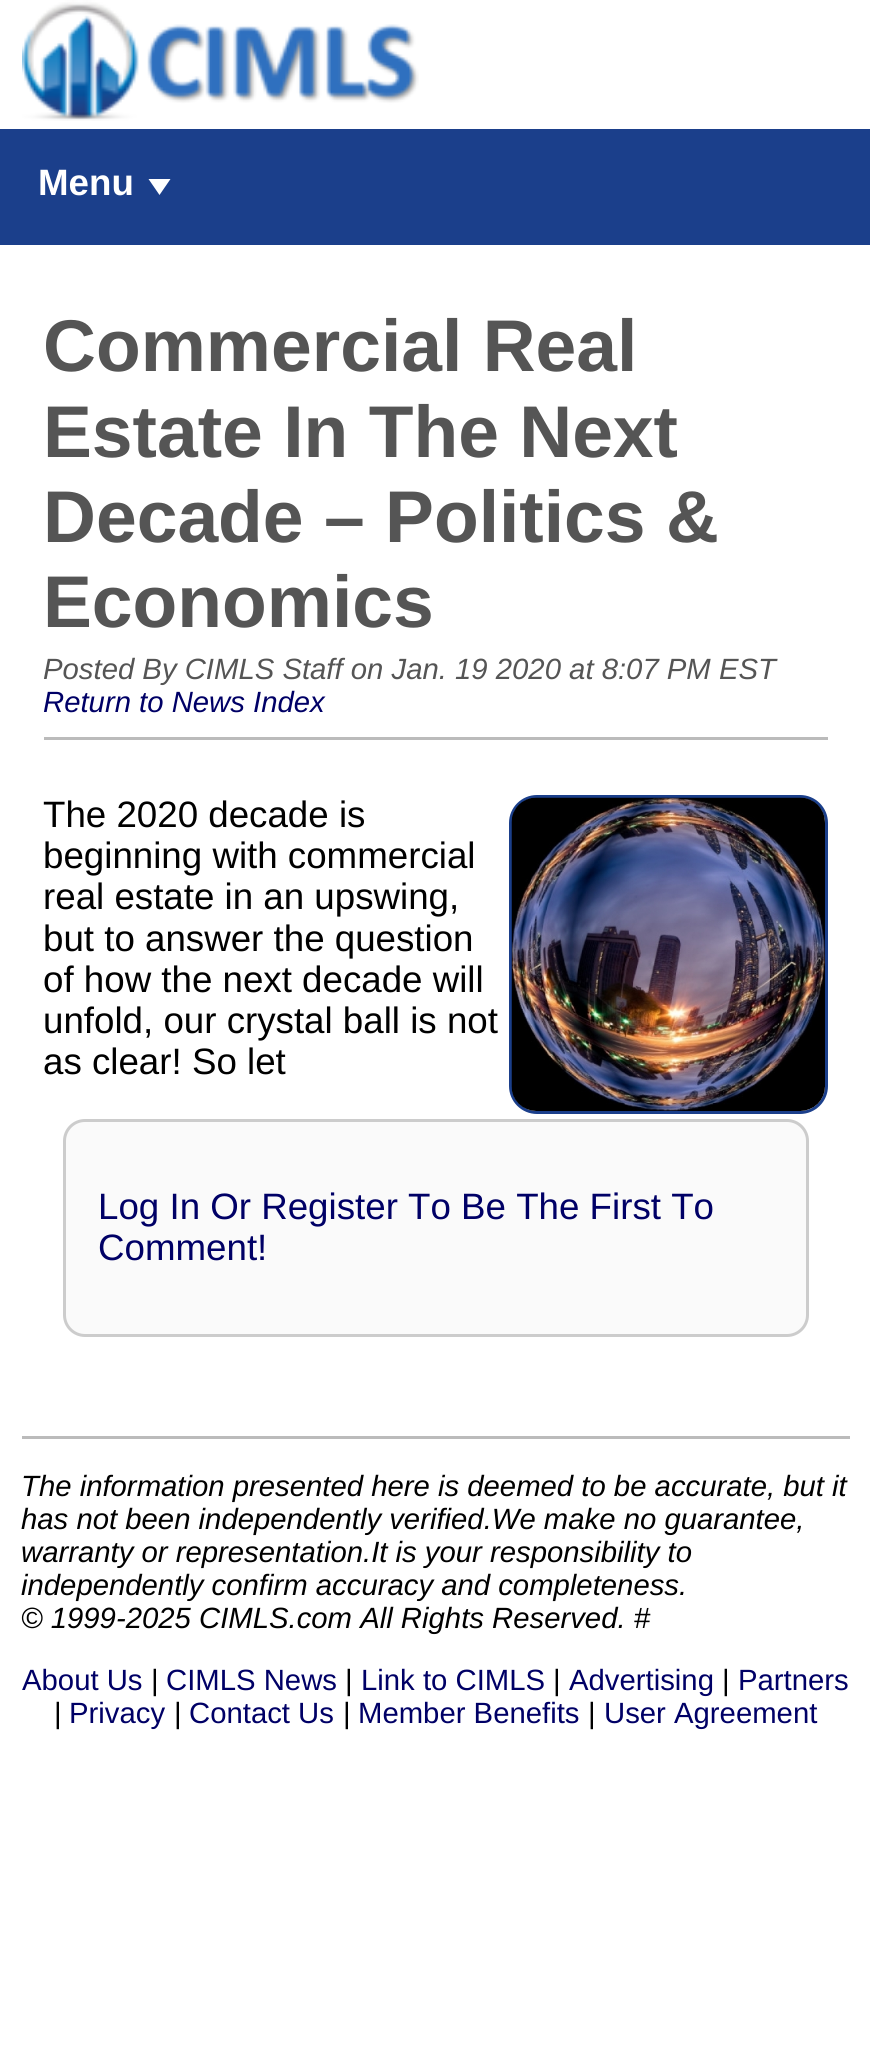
import math
import cairo

surface = cairo.ImageSurface(cairo.FORMAT_RGB24, 870, 2057)
ctx = cairo.Context(surface)
options = cairo.FontOptions()
options.set_hint_metrics(cairo.HINT_METRICS_OFF)
options.set_hint_style(cairo.HINT_STYLE_NONE)
ctx.set_font_options(options)
ctx.set_miter_limit(4)


def set_color(code):
    ctx.set_source_rgb(*(v / 255 for v in bytes.fromhex(code[-6:])))


def draw_text(x, y, s, family, size, color, bold=False, italic=False):
    ctx.select_font_face(family, cairo.FONT_SLANT_ITALIC if italic else cairo.FONT_SLANT_NORMAL, cairo.FONT_WEIGHT_BOLD if bold else cairo.FONT_WEIGHT_NORMAL)
    ctx.set_font_size(size)
    set_color(color)
    ctx.move_to(x, y)
    ctx.show_text(s)


def fill_rect(x, y, w, h, color):
    set_color(color)
    ctx.rectangle(x, y, w, h)
    ctx.fill()


def rounded_rect(x, y, w, h, r):
    ctx.new_sub_path()
    for i, (u, v) in enumerate([(x + w - r, y + h - r), (x + r, y + h - r), (x + r, y + r), (x + w - r, y + r)]):
        ctx.arc(u, v, r, i * math.pi / 2, (i + 1) * math.pi / 2)
    ctx.close_path()


def draw_image(path, x, y, w, h):
    ctx.save()
    ctx.set_source_surface(cairo.ImageSurface.create_from_png(path), x, y)
    ctx.rectangle(x, y, w, h)
    ctx.fill()
    ctx.restore()


set_color("#ffffff")
ctx.paint()
draw_image("assets/img1.png", 22, 0, 397, 121)
fill_rect(0, 129, 870, 116, "#1b3f8b")
draw_text(38, 195, "Menu", "Liberation Sans", 36.7, "#ffffff", bold=True)
ctx.new_path()
ctx.move_to(148.5, 179)
ctx.line_to(170.5, 179)
ctx.line_to(159.5, 195)
ctx.close_path()
ctx.fill()
draw_text(43, 371, "Commercial Real", "Liberation Sans", 73.25, "#555555", bold=True)
draw_text(43, 457, "Estate In The Next", "Liberation Sans", 73.25, "#555555", bold=True)
draw_text(43, 542, "Decade – Politics &", "Liberation Sans", 73.25, "#555555", bold=True)
draw_text(43, 627, "Economics", "Liberation Sans", 73.25, "#555555", bold=True)
draw_text(43, 679, "Posted By CIMLS Staff on Jan. 19 2020 at 8:07 PM EST", "Liberation Sans", 29.3, "#555555", italic=True)
draw_text(43, 712, "Return to News Index", "Liberation Sans", 29.3, "#000066", italic=True)
fill_rect(44, 737, 784, 3, "#bbbbbb")
draw_text(43, 827, "The 2020 decade is", "Liberation Sans", 36.7, "#000000")
rounded_rect(510.5, 796.5, 316, 316, 26.5)
set_color("#1b3f8b")
ctx.set_line_width(3)
ctx.stroke()
draw_image("assets/img2.png", 511, 797, 314, 314)
draw_text(43, 868, "beginning with commercial", "Liberation Sans", 36.7, "#000000")
draw_text(43, 909, "real estate in an upswing,", "Liberation Sans", 36.7, "#000000")
draw_text(43, 951, "but to answer the question", "Liberation Sans", 36.7, "#000000")
draw_text(43, 992, "of how the next decade will", "Liberation Sans", 36.7, "#000000")
draw_text(43, 1033, "unfold, our crystal ball is not", "Liberation Sans", 36.7, "#000000")
draw_text(43, 1074, "as clear! So let", "Liberation Sans", 36.7, "#000000")
set_color("#fafafa")
rounded_rect(64.5, 1120.5, 743, 215, 20.5)
ctx.fill_preserve()
set_color("#cccccc")
ctx.stroke()
draw_text(98, 1219, "Log In Or Register To Be The First To", "Liberation Sans", 36.7, "#000066")
draw_text(98, 1260, "Comment!", "Liberation Sans", 36.7, "#000066")
fill_rect(22, 1436, 828, 3, "#bbbbbb")
draw_text(21, 1496, "The information presented here is deemed to be accurate, but it", "Liberation Sans", 29.3, "#000000", italic=True)
draw_text(21, 1529, "has not been independently verified.We make no guarantee,", "Liberation Sans", 29.3, "#000000", italic=True)
draw_text(21, 1562, "warranty or representation.It is your responsibility to", "Liberation Sans", 29.3, "#000000", italic=True)
draw_text(21, 1595, "independently confirm accuracy and completeness.", "Liberation Sans", 29.3, "#000000", italic=True)
draw_text(21, 1628, "© 1999-2025 CIMLS.com All Rights Reserved. #", "Liberation Sans", 29.3, "#000000", italic=True)
draw_text(22, 1690, "About Us", "Liberation Sans", 29.3, "#000066")
draw_text(151, 1690, "|", "Liberation Sans", 29.3, "#000000")
draw_text(166, 1690, "CIMLS News", "Liberation Sans", 29.3, "#000066")
draw_text(345, 1690, "|", "Liberation Sans", 29.3, "#000000")
draw_text(361, 1690, "Link to CIMLS", "Liberation Sans", 29.3, "#000066")
draw_text(553, 1690, "|", "Liberation Sans", 29.3, "#000000")
draw_text(569, 1690, "Advertising", "Liberation Sans", 29.3, "#000066")
draw_text(722, 1690, "|", "Liberation Sans", 29.3, "#000000")
draw_text(738, 1690, "Partners", "Liberation Sans", 29.3, "#000066")
draw_text(54, 1723, "|", "Liberation Sans", 29.3, "#000000")
draw_text(69, 1723, "Privacy", "Liberation Sans", 29.3, "#000066")
draw_text(174, 1723, "|", "Liberation Sans", 29.3, "#000000")
draw_text(189, 1723, "Contact Us", "Liberation Sans", 29.3, "#000066")
draw_text(343, 1723, "|", "Liberation Sans", 29.3, "#000000")
draw_text(358, 1723, "Member Benefits", "Liberation Sans", 29.3, "#000066")
draw_text(588, 1723, "|", "Liberation Sans", 29.3, "#000000")
draw_text(604, 1723, "User Agreement", "Liberation Sans", 29.3, "#000066")
surface.write_to_png("output.png")
